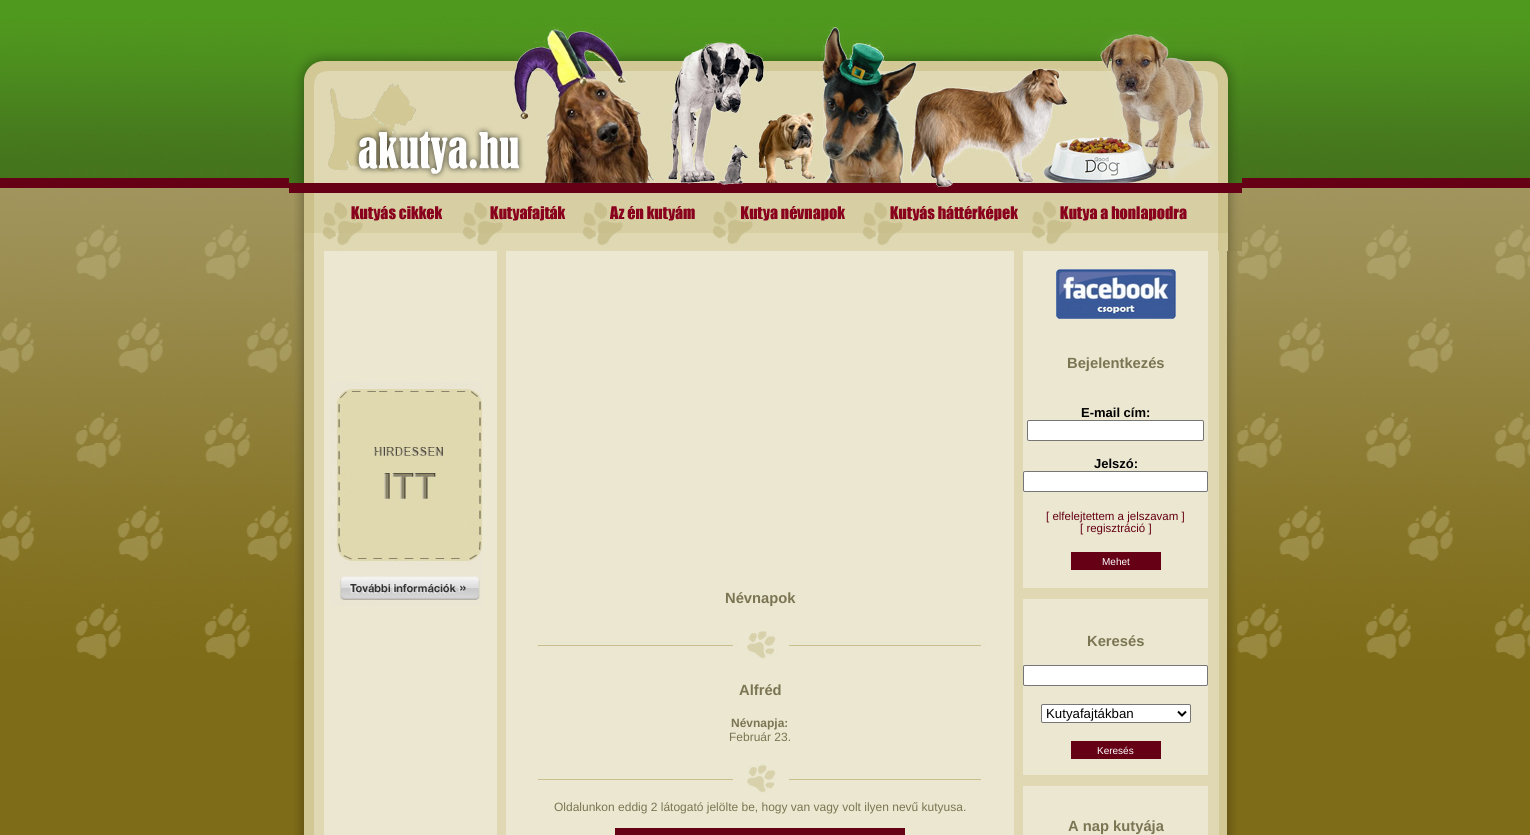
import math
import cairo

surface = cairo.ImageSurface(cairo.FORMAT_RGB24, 1530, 835)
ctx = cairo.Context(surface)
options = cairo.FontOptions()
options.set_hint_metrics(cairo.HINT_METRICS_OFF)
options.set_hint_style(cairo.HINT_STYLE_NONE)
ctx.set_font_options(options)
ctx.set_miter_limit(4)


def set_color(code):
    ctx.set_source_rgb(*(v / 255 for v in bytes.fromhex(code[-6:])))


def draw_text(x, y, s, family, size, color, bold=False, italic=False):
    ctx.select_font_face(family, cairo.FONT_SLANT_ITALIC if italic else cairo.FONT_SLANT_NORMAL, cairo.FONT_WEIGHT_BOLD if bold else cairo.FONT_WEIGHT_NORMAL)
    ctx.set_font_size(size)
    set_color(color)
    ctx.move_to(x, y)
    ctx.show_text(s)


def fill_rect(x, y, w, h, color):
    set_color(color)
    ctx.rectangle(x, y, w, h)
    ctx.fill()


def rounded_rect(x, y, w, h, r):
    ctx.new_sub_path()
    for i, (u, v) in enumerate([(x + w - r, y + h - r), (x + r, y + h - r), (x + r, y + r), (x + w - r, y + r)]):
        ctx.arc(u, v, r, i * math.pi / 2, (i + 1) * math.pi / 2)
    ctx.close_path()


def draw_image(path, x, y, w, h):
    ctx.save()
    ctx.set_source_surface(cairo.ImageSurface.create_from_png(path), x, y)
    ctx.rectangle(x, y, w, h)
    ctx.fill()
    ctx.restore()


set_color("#7f6c18")
ctx.paint()
draw_image("assets/img1.png", 0, 0, 1530, 659)
draw_image("assets/img2.png", 289, 21, 953, 172)
draw_image("assets/img3.png", 294, 193, 159, 58)
draw_image("assets/img4.png", 453, 193, 121, 58)
draw_image("assets/img5.png", 574, 193, 130, 58)
draw_image("assets/img6.png", 704, 193, 150, 58)
draw_image("assets/img7.png", 854, 193, 171, 58)
draw_image("assets/img8.png", 1025, 193, 217, 58)
draw_image("assets/img9.png", 293, 659, 11, 176)
draw_image("assets/img10.png", 293, 251, 11, 408)
draw_image("assets/img11.png", 304, 251, 20, 584)
fill_rect(324, 251, 173, 584, "#ebe7d0")
draw_image("assets/img12.png", 330, 382, 152, 224)
fill_rect(497, 251, 9, 584, "#dfd8b2")
fill_rect(506, 251, 508, 584, "#ebe7d0")
draw_text(725, 603, "Névnapok", "Liberation Sans", 14.75, "#7b7553", bold=True)
draw_image("assets/img13.png", 536, 630, 451, 29)
draw_text(739, 695, "Alfréd", "Liberation Sans", 14.75, "#7b7553", bold=True)
draw_text(731, 727, "Névnapja:", "Liberation Sans", 12, "#7b7553", bold=True)
draw_text(729, 741, "Február 23.", "Liberation Sans", 12, "#7b7553")
draw_image("assets/img13.png", 536, 764, 451, 29)
draw_text(554, 811, "Oldalunkon eddig 2 látogató jelölte be, hogy van vagy volt ilyen nevű kutyusa.", "Liberation Sans", 12, "#7b7553")
fill_rect(615, 828, 290, 7, "#650015")
fill_rect(1014, 251, 9, 584, "#dfd8b2")
fill_rect(1023, 251, 185, 584, "#ebe7d0")
draw_image("assets/img14.png", 1056, 269, 120, 50)
draw_text(1067, 368, "Bejelentkezés", "Liberation Sans", 14.75, "#7b7553", bold=True)
draw_text(1081, 417, "E-mail cím:", "Liberation Sans", 13, "#000000", bold=True)
set_color("#ffffff")
rounded_rect(1027.5, 420.5, 176, 20, 1.5)
ctx.fill_preserve()
set_color("#767676")
ctx.set_line_width(1)
ctx.stroke()
draw_text(1094, 468, "Jelszó:", "Liberation Sans", 13, "#000000", bold=True)
set_color("#ffffff")
rounded_rect(1023.5, 471.5, 184, 20, 1.5)
ctx.fill_preserve()
set_color("#767676")
ctx.stroke()
draw_text(1046, 520, "[ elfelejtettem a jelszavam ]", "Liberation Sans", 11.5, "#650015")
draw_text(1080, 532, "[ regisztráció ]", "Liberation Sans", 11.5, "#650015")
fill_rect(1071, 552, 90, 18, "#650015")
draw_text(1102, 565, "Mehet", "Liberation Sans", 10, "#ffffff")
fill_rect(1023, 588, 185, 11, "#dfd8b2")
draw_text(1087, 646, "Keresés", "Liberation Sans", 14.75, "#7b7553", bold=True)
set_color("#ffffff")
rounded_rect(1023.5, 665.5, 184, 20, 1.5)
ctx.fill_preserve()
set_color("#767676")
ctx.stroke()
set_color("#ffffff")
rounded_rect(1041.5, 704.5, 149, 18, 1.5)
ctx.fill_preserve()
set_color("#767676")
ctx.stroke()
ctx.new_path()
ctx.move_to(1178, 711.5)
ctx.line_to(1182, 715.5)
ctx.line_to(1186, 711.5)
set_color("#000000")
ctx.set_line_width(2)
ctx.stroke()
draw_text(1046, 718, "Kutyafajtákban", "Liberation Sans", 13.25, "#000000")
fill_rect(1071, 741, 90, 18, "#650015")
draw_text(1097, 754, "Keresés", "Liberation Sans", 10, "#ffffff")
fill_rect(1023, 775, 185, 11, "#dfd8b2")
draw_text(1068, 831, "A nap kutyája", "Liberation Sans", 14.75, "#7b7553", bold=True)
draw_image("assets/img15.png", 1208, 251, 19, 584)
draw_image("assets/img16.png", 1227, 648, 10, 187)
draw_image("assets/img17.png", 1227, 251, 10, 397)
surface.write_to_png("output.png")
